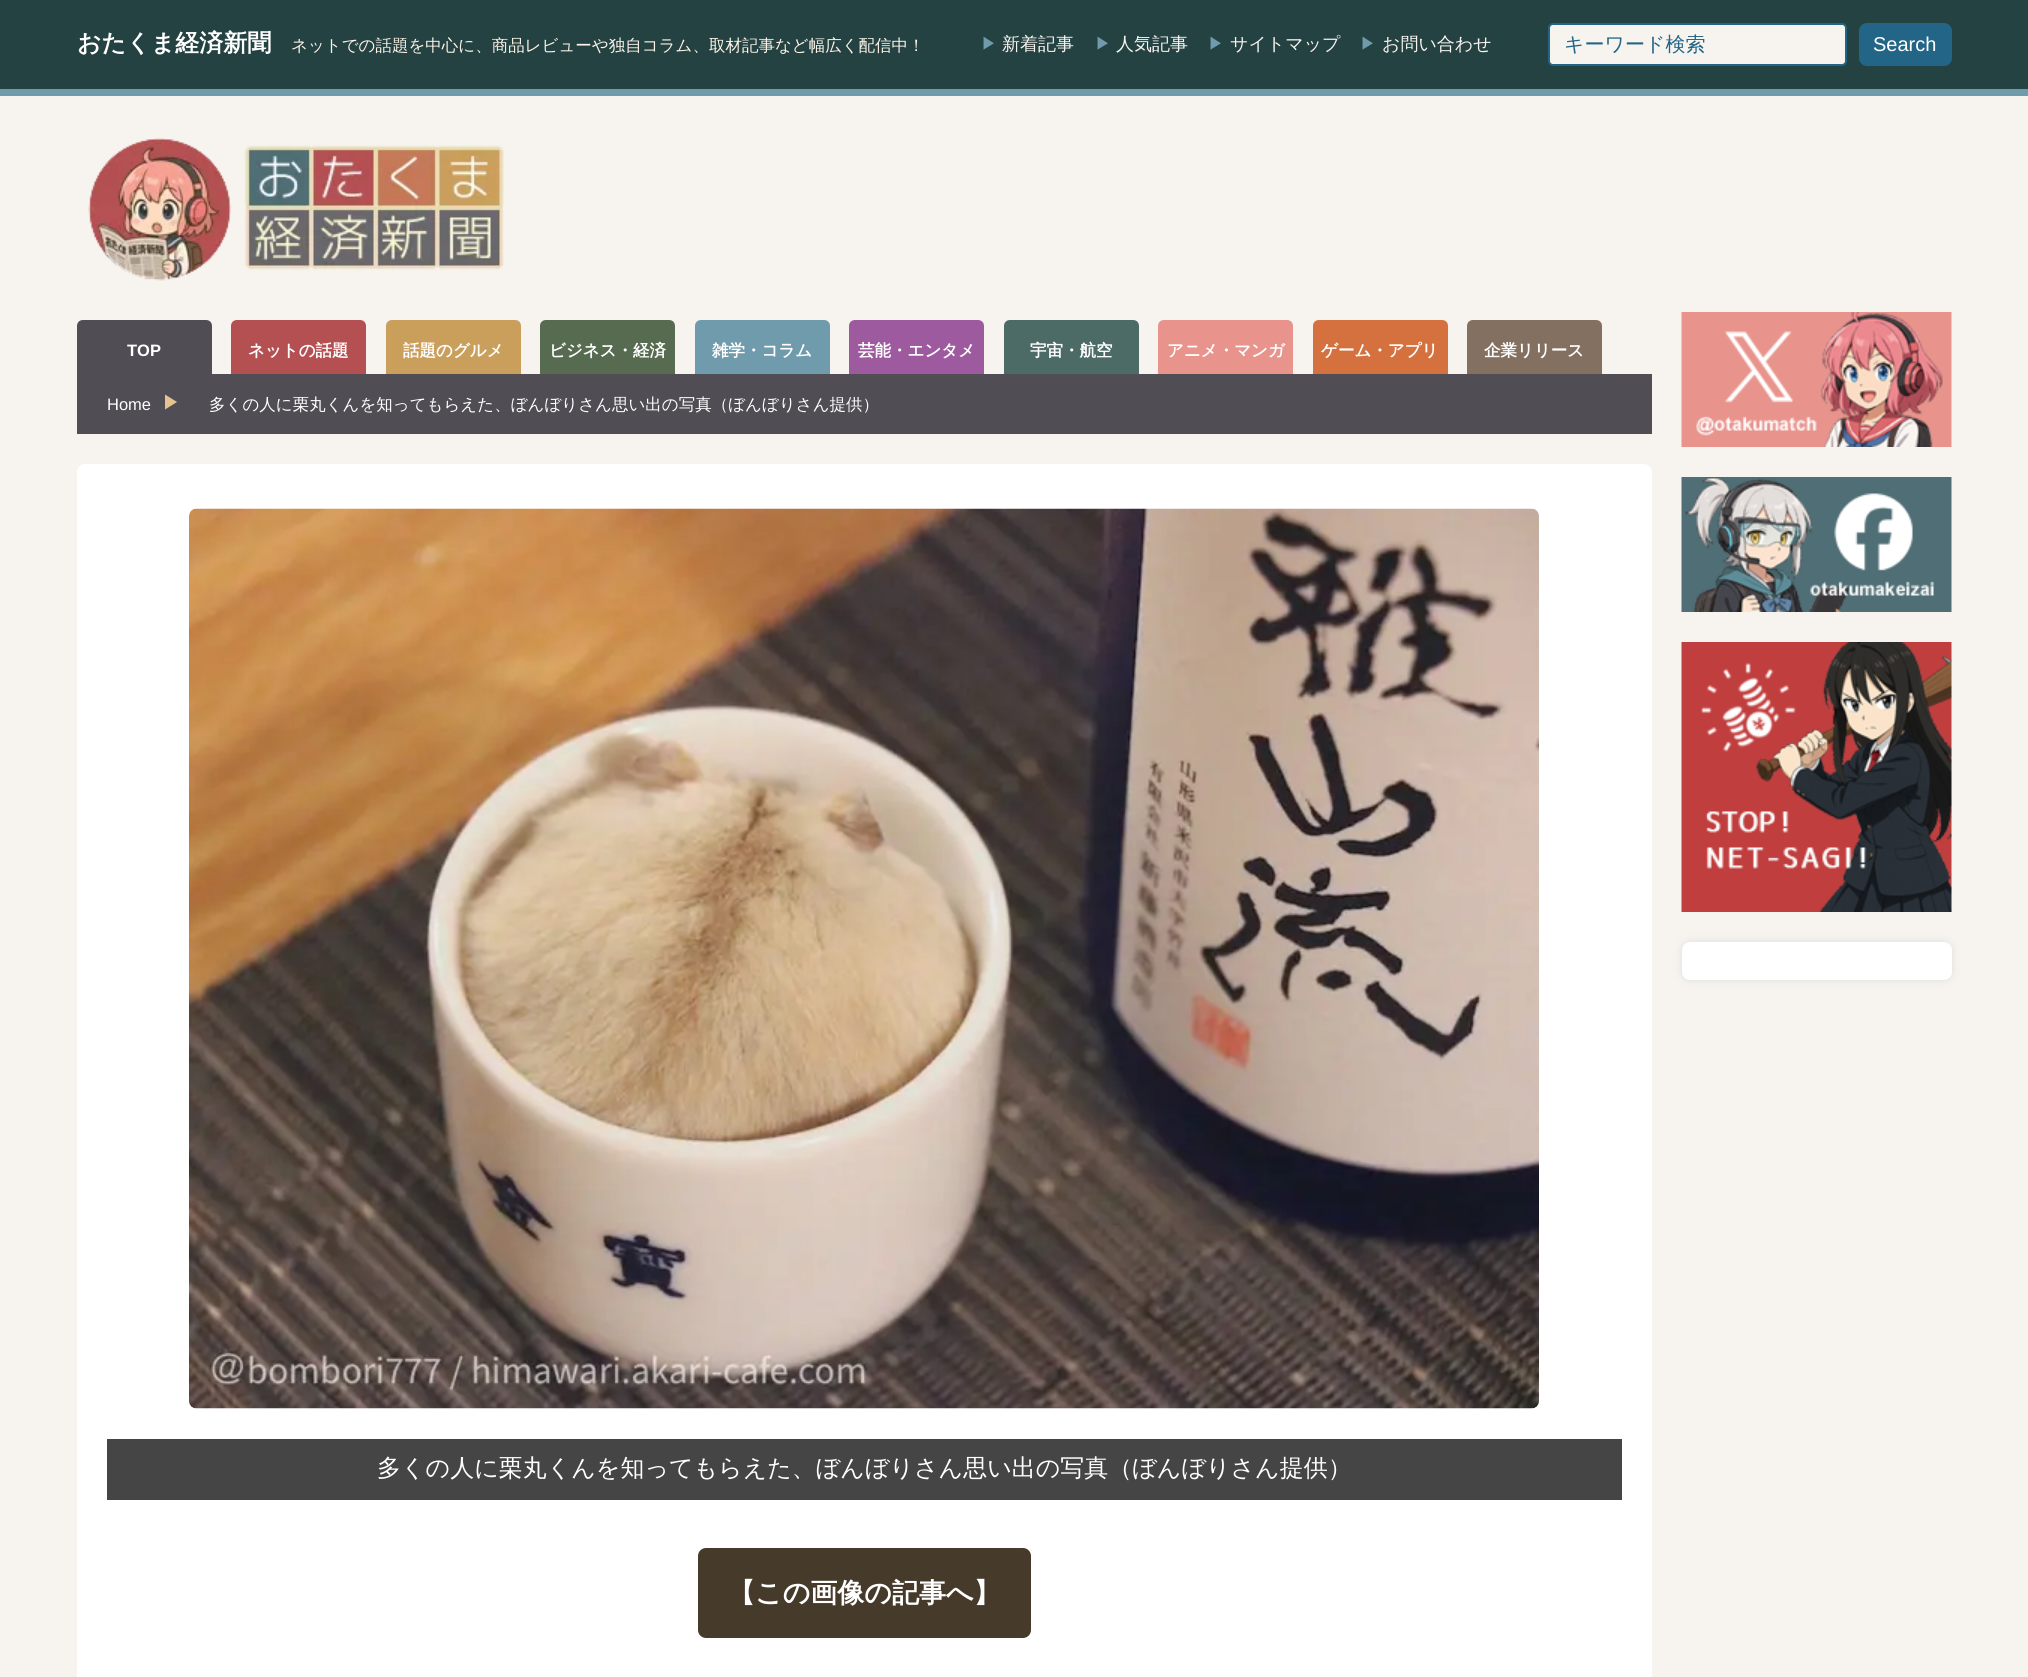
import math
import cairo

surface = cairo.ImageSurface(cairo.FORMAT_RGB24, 2028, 1677)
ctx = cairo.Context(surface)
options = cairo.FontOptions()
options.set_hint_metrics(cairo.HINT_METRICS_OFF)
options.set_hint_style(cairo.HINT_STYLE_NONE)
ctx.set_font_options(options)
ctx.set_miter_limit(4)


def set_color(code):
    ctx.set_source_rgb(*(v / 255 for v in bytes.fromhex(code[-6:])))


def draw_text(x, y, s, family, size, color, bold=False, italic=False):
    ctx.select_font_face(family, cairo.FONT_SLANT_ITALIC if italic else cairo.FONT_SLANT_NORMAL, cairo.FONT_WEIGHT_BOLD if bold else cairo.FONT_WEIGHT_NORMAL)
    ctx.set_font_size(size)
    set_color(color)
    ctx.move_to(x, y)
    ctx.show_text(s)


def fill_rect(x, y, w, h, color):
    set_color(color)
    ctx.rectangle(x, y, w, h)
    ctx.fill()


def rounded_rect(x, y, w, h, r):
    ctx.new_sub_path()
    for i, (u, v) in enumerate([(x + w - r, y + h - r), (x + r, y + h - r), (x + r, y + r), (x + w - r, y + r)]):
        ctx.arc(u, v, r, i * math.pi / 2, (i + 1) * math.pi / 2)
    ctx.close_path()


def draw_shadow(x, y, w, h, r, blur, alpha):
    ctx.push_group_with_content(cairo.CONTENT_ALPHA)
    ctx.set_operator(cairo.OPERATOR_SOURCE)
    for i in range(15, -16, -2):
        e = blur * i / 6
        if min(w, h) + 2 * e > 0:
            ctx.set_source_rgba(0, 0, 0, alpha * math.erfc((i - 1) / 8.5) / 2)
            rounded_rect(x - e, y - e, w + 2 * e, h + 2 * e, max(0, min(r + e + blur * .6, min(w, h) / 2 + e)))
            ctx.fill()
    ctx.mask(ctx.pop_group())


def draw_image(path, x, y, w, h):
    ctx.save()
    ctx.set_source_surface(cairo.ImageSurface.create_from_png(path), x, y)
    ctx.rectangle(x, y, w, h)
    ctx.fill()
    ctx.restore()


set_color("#f7f4ef")
ctx.paint()
fill_rect(0, 0, 2028, 89, "#254242")
fill_rect(0, 89, 2028, 7, "#709bac")
draw_text(77, 51, "おたくま経済新聞", "WenQuanYi Zen Hei", 24, "#ffffff", bold=True)
draw_text(291, 51, "ネットでの話題を中心に、商品レビューや独自コラム、取材記事など幅広く配信中！", "WenQuanYi Zen Hei Medium", 16.5, "#fbf3e8")
draw_text(981, 49, "▶", "WenQuanYi Zen Hei Medium", 16, "#709bac")
draw_text(1002, 50, "新着記事", "WenQuanYi Zen Hei Medium", 18, "#f7f4ef")
draw_text(1095, 49, "▶", "WenQuanYi Zen Hei Medium", 16, "#709bac")
draw_text(1116, 50, "人気記事", "WenQuanYi Zen Hei Medium", 18, "#f7f4ef")
draw_text(1208, 49, "▶", "WenQuanYi Zen Hei Medium", 16, "#709bac")
draw_text(1230, 50, "サイトマップ", "WenQuanYi Zen Hei Medium", 18, "#f7f4ef")
draw_text(1360, 49, "▶", "WenQuanYi Zen Hei Medium", 16, "#709bac")
draw_text(1382, 50, "お問い合わせ", "WenQuanYi Zen Hei Medium", 18, "#f7f4ef")
rounded_rect(1549, 24, 297, 41, 4)
ctx.fill_preserve()
set_color("#236586")
ctx.stroke()
draw_text(1564, 51, "キーワード検索", "WenQuanYi Zen Hei Medium", 20, "#236586")
rounded_rect(1859, 23, 93, 43, 8)
ctx.fill()
draw_text(1873, 51, "Search", "Liberation Sans", 20, "#ffffff")
draw_image("assets/img1.png", 88, 138, 417, 143)
set_color("#504d54")
ctx.new_path()
ctx.move_to(83, 320)
ctx.line_to(206, 320)
ctx.curve_to(209.5, 320, 212, 322.5, 212, 326)
ctx.line_to(212, 374)
ctx.line_to(77, 374)
ctx.line_to(77, 326)
ctx.curve_to(77, 322.5, 79.5, 320, 83, 320)
ctx.close_path()
ctx.fill()
draw_text(127, 356, "TOP", "Liberation Sans", 16.5, "#ffffff", bold=True)
set_color("#b55052")
ctx.new_path()
ctx.move_to(237, 320)
ctx.line_to(360, 320)
ctx.curve_to(363.5, 320, 366, 322.5, 366, 326)
ctx.line_to(366, 374)
ctx.line_to(231, 374)
ctx.line_to(231, 326)
ctx.curve_to(231, 322.5, 233.5, 320, 237, 320)
ctx.close_path()
ctx.fill()
draw_text(248, 356, "ネットの話題", "WenQuanYi Zen Hei", 16.5, "#ffffff", bold=True)
set_color("#ca9f5c")
ctx.new_path()
ctx.move_to(392, 320)
ctx.line_to(515, 320)
ctx.curve_to(518.5, 320, 521, 322.5, 521, 326)
ctx.line_to(521, 374)
ctx.line_to(386, 374)
ctx.line_to(386, 326)
ctx.curve_to(386, 322.5, 388.5, 320, 392, 320)
ctx.close_path()
ctx.fill()
draw_text(403, 356, "話題のグルメ", "WenQuanYi Zen Hei", 16.5, "#ffffff", bold=True)
set_color("#566b4f")
ctx.new_path()
ctx.move_to(546, 320)
ctx.line_to(669, 320)
ctx.curve_to(672.5, 320, 675, 322.5, 675, 326)
ctx.line_to(675, 374)
ctx.line_to(540, 374)
ctx.line_to(540, 326)
ctx.curve_to(540, 322.5, 542.5, 320, 546, 320)
ctx.close_path()
ctx.fill()
draw_text(549, 356, "ビジネス・経済", "WenQuanYi Zen Hei", 16.5, "#ffffff", bold=True)
set_color("#709bac")
ctx.new_path()
ctx.move_to(701, 320)
ctx.line_to(824, 320)
ctx.curve_to(827.5, 320, 830, 322.5, 830, 326)
ctx.line_to(830, 374)
ctx.line_to(695, 374)
ctx.line_to(695, 326)
ctx.curve_to(695, 322.5, 697.5, 320, 701, 320)
ctx.close_path()
ctx.fill()
draw_text(712, 356, "雑学・コラム", "WenQuanYi Zen Hei", 16.5, "#ffffff", bold=True)
set_color("#9e5a9e")
ctx.new_path()
ctx.move_to(855, 320)
ctx.line_to(978, 320)
ctx.curve_to(981.5, 320, 984, 322.5, 984, 326)
ctx.line_to(984, 374)
ctx.line_to(849, 374)
ctx.line_to(849, 326)
ctx.curve_to(849, 322.5, 851.5, 320, 855, 320)
ctx.close_path()
ctx.fill()
draw_text(858, 356, "芸能・エンタメ", "WenQuanYi Zen Hei", 16.5, "#ffffff", bold=True)
set_color("#4c6b66")
ctx.new_path()
ctx.move_to(1010, 320)
ctx.line_to(1133, 320)
ctx.curve_to(1136.5, 320, 1139, 322.5, 1139, 326)
ctx.line_to(1139, 374)
ctx.line_to(1004, 374)
ctx.line_to(1004, 326)
ctx.curve_to(1004, 322.5, 1006.5, 320, 1010, 320)
ctx.close_path()
ctx.fill()
draw_text(1030, 356, "宇宙・航空", "WenQuanYi Zen Hei", 16.5, "#ffffff", bold=True)
set_color("#e8948d")
ctx.new_path()
ctx.move_to(1164, 320)
ctx.line_to(1287, 320)
ctx.curve_to(1290.5, 320, 1293, 322.5, 1293, 326)
ctx.line_to(1293, 374)
ctx.line_to(1158, 374)
ctx.line_to(1158, 326)
ctx.curve_to(1158, 322.5, 1160.5, 320, 1164, 320)
ctx.close_path()
ctx.fill()
draw_text(1167, 356, "アニメ・マンガ", "WenQuanYi Zen Hei", 16.5, "#ffffff", bold=True)
set_color("#d4713f")
ctx.new_path()
ctx.move_to(1319, 320)
ctx.line_to(1442, 320)
ctx.curve_to(1445.5, 320, 1448, 322.5, 1448, 326)
ctx.line_to(1448, 374)
ctx.line_to(1313, 374)
ctx.line_to(1313, 326)
ctx.curve_to(1313, 322.5, 1315.5, 320, 1319, 320)
ctx.close_path()
ctx.fill()
draw_text(1321, 356, "ゲーム・アプリ", "WenQuanYi Zen Hei", 16.5, "#ffffff", bold=True)
set_color("#837060")
ctx.new_path()
ctx.move_to(1473, 320)
ctx.line_to(1596, 320)
ctx.curve_to(1599.5, 320, 1602, 322.5, 1602, 326)
ctx.line_to(1602, 374)
ctx.line_to(1467, 374)
ctx.line_to(1467, 326)
ctx.curve_to(1467, 322.5, 1469.5, 320, 1473, 320)
ctx.close_path()
ctx.fill()
draw_text(1484, 356, "企業リリース", "WenQuanYi Zen Hei", 16.5, "#ffffff", bold=True)
fill_rect(77, 374, 1575, 60, "#504d54")
draw_text(107, 410, "Home", "Liberation Sans", 16.5, "#ffffff")
set_color("#e4c390")
ctx.new_path()
ctx.move_to(165, 409.5)
ctx.line_to(165, 394.5)
ctx.line_to(177, 402)
ctx.close_path()
ctx.fill()
draw_text(209, 410, "多くの人に栗丸くんを知ってもらえた、ぼんぼりさん思い出の写真（ぼんぼりさん提供）", "WenQuanYi Zen Hei Medium", 16.5, "#ffffff")
rounded_rect(77, 464, 1575, 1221, 8)
ctx.fill()
draw_image("assets/img2.png", 189, 508, 1350, 901)
fill_rect(107, 1439, 1515, 61, "#454545")
draw_text(377, 1476, "多くの人に栗丸くんを知ってもらえた、ぼんぼりさん思い出の写真（ぼんぼりさん提供）", "WenQuanYi Zen Hei Medium", 24, "#ffffff")
set_color("#463b2b")
rounded_rect(698, 1548, 333, 90, 8)
ctx.fill()
draw_text(728, 1602, "【この画像の記事へ】", "WenQuanYi Zen Hei", 27, "#ffffff", bold=True)
draw_image("assets/img3.png", 1681, 312, 271, 135)
draw_image("assets/img4.png", 1681, 477, 271, 135)
draw_image("assets/img5.png", 1681, 642, 271, 270)
set_color("#dddddd")
draw_shadow(1682, 942, 270, 38, 8, 4, 1)
set_color("#ffffff")
rounded_rect(1682, 942, 270, 38, 8)
ctx.fill()
surface.write_to_png("output.png")
